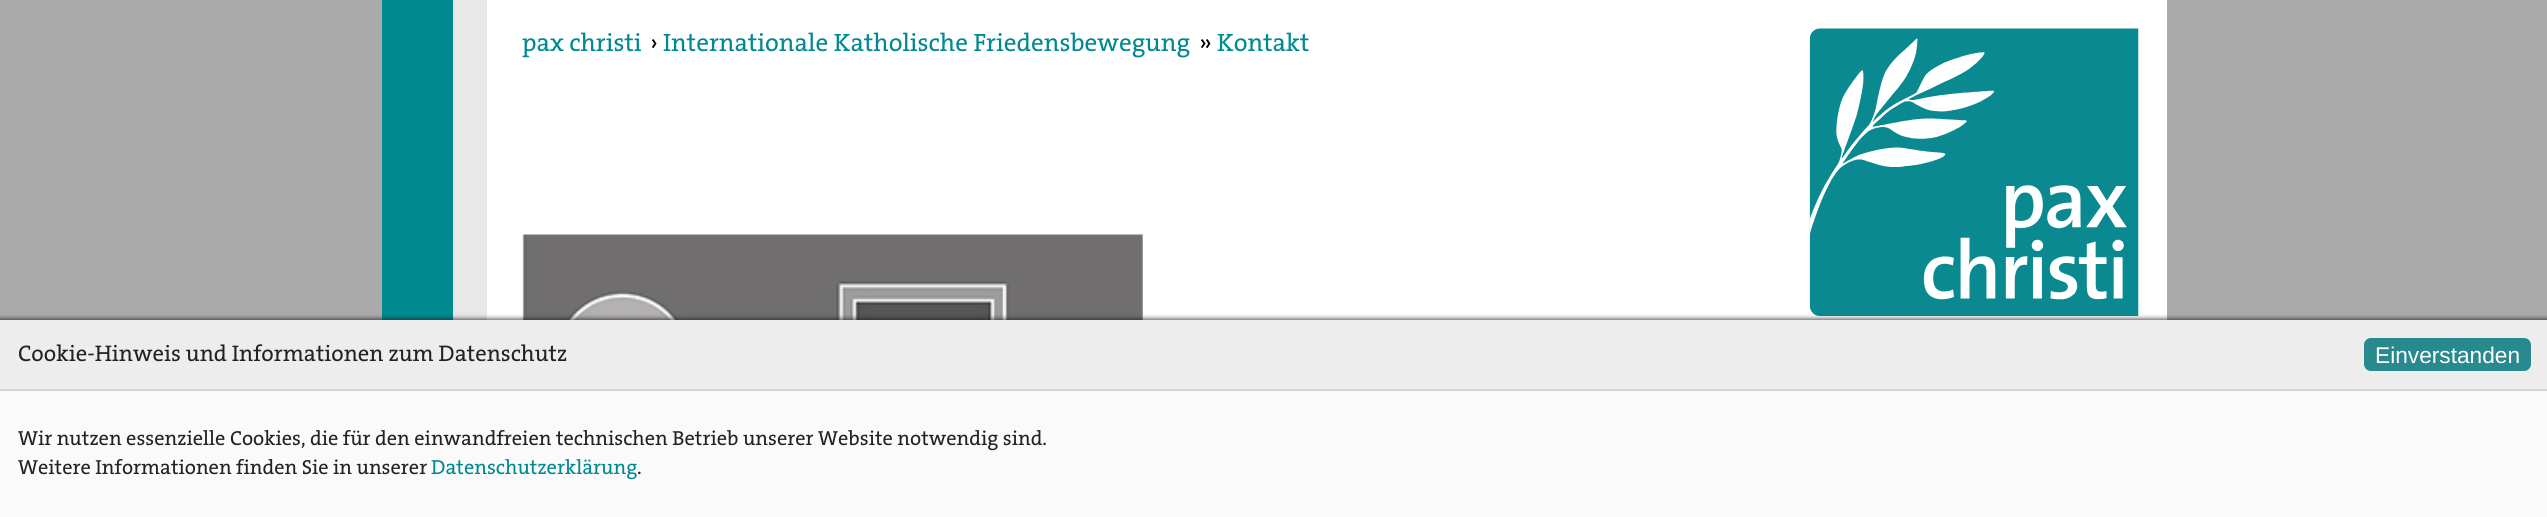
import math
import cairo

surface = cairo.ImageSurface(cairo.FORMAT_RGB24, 2547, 517)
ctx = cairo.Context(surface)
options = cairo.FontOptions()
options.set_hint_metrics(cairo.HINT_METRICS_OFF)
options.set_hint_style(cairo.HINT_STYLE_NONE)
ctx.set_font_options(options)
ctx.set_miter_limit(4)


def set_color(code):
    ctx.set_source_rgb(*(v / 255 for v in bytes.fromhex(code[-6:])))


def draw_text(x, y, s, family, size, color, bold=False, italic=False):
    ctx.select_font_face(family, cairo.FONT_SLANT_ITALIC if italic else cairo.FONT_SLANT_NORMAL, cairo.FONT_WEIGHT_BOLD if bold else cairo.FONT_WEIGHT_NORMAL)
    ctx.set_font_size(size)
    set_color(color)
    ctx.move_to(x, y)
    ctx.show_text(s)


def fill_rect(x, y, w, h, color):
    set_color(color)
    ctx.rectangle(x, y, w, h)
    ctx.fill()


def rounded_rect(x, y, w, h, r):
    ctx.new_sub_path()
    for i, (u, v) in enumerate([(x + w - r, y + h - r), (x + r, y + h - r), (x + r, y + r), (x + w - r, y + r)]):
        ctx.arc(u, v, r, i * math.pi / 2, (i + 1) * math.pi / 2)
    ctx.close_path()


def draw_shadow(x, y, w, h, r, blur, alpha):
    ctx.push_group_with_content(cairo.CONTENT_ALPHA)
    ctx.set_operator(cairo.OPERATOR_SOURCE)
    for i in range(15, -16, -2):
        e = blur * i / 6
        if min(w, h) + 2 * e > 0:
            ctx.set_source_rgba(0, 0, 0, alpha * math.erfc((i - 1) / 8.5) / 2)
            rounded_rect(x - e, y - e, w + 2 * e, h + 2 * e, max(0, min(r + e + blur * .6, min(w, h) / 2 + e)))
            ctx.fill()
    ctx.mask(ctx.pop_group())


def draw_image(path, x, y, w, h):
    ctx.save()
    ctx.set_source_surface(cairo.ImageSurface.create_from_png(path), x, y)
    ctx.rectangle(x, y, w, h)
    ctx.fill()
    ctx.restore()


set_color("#aaaaaa")
ctx.paint()
fill_rect(453, 0, 34, 320, "#e8e8e8")
fill_rect(487, 0, 1680, 320, "#ffffff")
set_color("#008990")
ctx.new_path()
ctx.move_to(382, 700)
ctx.line_to(382, 0)
ctx.line_to(453, 0)
ctx.line_to(453, 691)
ctx.curve_to(453, 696, 449, 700, 444, 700)
ctx.close_path()
ctx.fill()
draw_text(522, 51, "pax christi", "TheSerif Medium", 25.2, "#008990")
draw_text(650, 51, "›", "TheSerif Medium", 25.2, "#000000")
draw_text(663, 51, "Internationale Katholische Friedensbewegung", "TheSerif Medium", 25.2, "#008990")
draw_text(1199, 51, "»", "TheSerif Medium", 25.2, "#000000")
draw_text(1217, 51, "Kontakt", "TheSerif Medium", 25.2, "#008990")
draw_image("assets/img1.png", 1809, 28, 330, 288)
draw_image("assets/img2.png", 522, 234, 621, 86)
set_color("#191919")
draw_shadow(-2, 319, 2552, 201, 0, 2.5, 0.8)
fill_rect(0, 391, 2547, 126, "#fafafa")
fill_rect(0, 320, 2547, 69, "#ededed")
fill_rect(0, 389, 2547, 2, "#d4d4d4")
draw_text(18, 361, "Cookie-Hinweis und Informationen zum Datenschutz", "TheSerif Medium", 22.7, "#222222")
set_color("#28898f")
rounded_rect(2364, 338, 167, 33, 7)
ctx.fill()
draw_text(2375, 363, "Einverstanden", "Liberation Sans", 22.7, "#ffffff")
draw_text(18, 445, "Wir nutzen essenzielle Cookies, die für den einwandfreien technischen Betrieb unserer Website notwendig sind.", "TheSerif Medium", 20.4, "#222222")
draw_text(18, 474, "Weitere Informationen finden Sie in unserer", "TheSerif Medium", 20.4, "#222222")
draw_text(431, 474, "Datenschutzerklärung", "TheSerif Medium", 20.4, "#008990")
draw_text(637, 474, ".", "TheSerif Medium", 20.4, "#222222")
surface.write_to_png("output.png")
